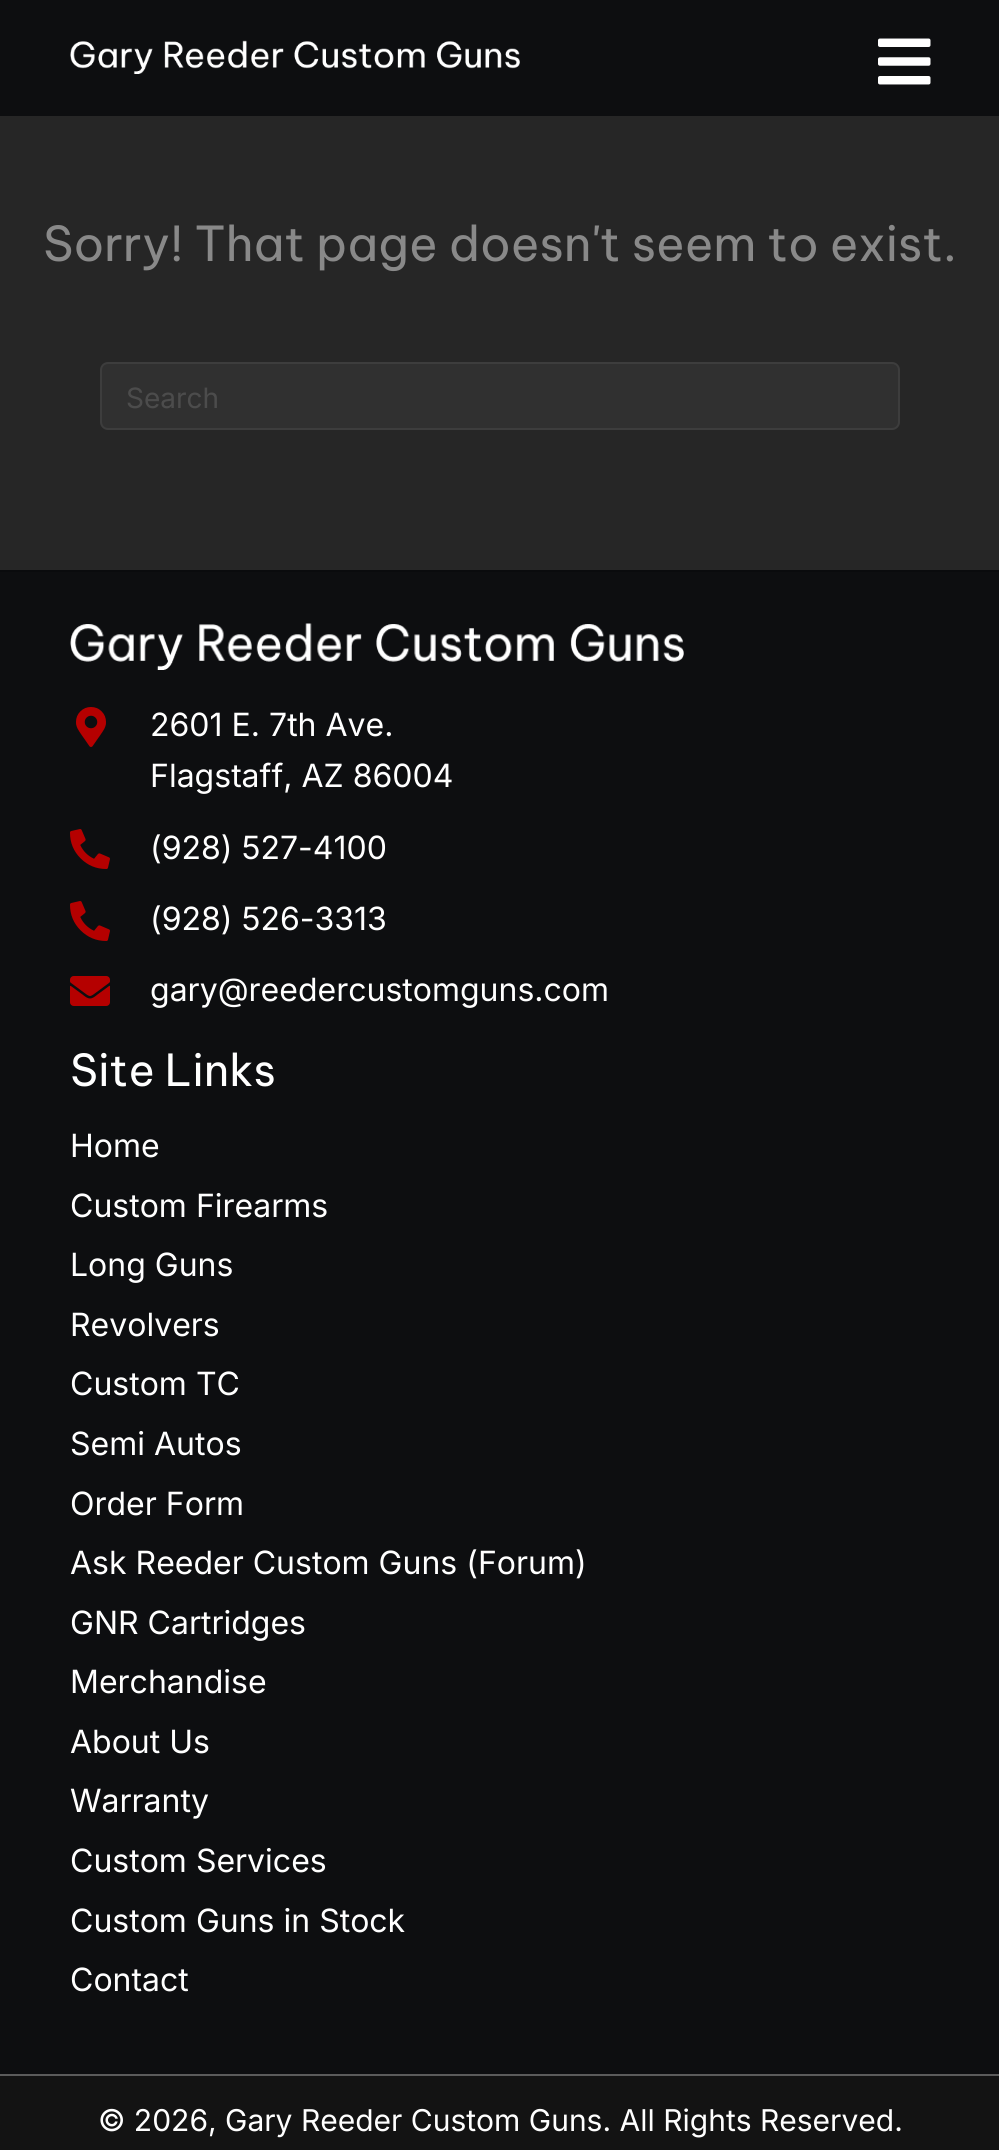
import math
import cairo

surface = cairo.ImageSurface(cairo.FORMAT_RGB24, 999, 2150)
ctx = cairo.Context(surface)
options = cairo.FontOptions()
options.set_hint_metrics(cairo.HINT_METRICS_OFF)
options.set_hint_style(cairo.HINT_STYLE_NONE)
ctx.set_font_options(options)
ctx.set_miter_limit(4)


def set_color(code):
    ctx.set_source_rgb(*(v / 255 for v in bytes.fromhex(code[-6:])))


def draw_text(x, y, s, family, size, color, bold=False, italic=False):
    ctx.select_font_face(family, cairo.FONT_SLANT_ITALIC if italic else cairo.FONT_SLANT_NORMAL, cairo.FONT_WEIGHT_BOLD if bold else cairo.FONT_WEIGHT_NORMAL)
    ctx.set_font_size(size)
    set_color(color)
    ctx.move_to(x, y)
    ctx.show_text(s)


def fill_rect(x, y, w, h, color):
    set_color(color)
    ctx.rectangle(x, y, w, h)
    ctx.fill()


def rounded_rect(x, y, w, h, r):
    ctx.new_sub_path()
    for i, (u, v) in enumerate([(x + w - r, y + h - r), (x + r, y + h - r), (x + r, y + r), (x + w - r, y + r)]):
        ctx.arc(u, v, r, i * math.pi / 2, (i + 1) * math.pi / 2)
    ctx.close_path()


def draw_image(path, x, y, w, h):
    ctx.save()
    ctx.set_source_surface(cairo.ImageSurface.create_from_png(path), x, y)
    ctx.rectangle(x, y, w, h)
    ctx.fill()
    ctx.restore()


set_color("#262626")
ctx.paint()
fill_rect(0, 0, 999, 116, "#0d0e10")
draw_image("assets/img1.png", 70, 40, 450, 34)
draw_image("assets/img2.png", 878, 38, 53, 47)
draw_text(43, 261, "Sorry! That page doesn't seem to exist.", "Be Vietnam Pro", 48, "#898989")
set_color("#303030")
rounded_rect(101, 363, 798, 66, 7)
ctx.fill_preserve()
set_color("#3d3d3d")
ctx.stroke()
draw_text(126, 408, "Search", "Inter", 28, "#4c4c4c")
fill_rect(0, 572, 999, 1502, "#0d0e10")
fill_rect(0, 570, 999, 2, "#0a0b0d")
draw_image("assets/img3.png", 70, 623, 614, 47)
draw_image("assets/img4.png", 76, 707, 30, 40)
draw_text(150, 736, "2601 E. 7th Ave.", "Inter", 32, "#ffffff")
draw_text(150, 787, "Flagstaff, AZ 86004", "Inter", 32, "#ffffff")
draw_image("assets/img5.png", 70, 829, 40, 40)
draw_text(150, 859, "(928) 527-4100", "Inter", 32, "#ffffff")
draw_image("assets/img5.png", 70, 901, 40, 40)
draw_text(150, 930, "(928) 526-3313", "Inter", 32, "#ffffff")
draw_image("assets/img6.png", 70, 976, 40, 30)
draw_text(150, 1001, "gary@reedercustomguns.com", "Inter", 32, "#ffffff")
draw_text(70, 1086, "Site Links", "Be Vietnam Pro", 44, "#ffffff")
draw_text(70, 1157, "Home", "Inter", 32, "#ffffff")
draw_text(70, 1217, "Custom Firearms", "Inter", 32, "#ffffff")
draw_text(70, 1276, "Long Guns", "Inter", 32, "#ffffff")
draw_text(70, 1336, "Revolvers", "Inter", 32, "#ffffff")
draw_text(70, 1395, "Custom TC", "Inter", 32, "#ffffff")
draw_text(70, 1455, "Semi Autos", "Inter", 32, "#ffffff")
draw_text(70, 1515, "Order Form", "Inter", 32, "#ffffff")
draw_text(70, 1574, "Ask Reeder Custom Guns (Forum)", "Inter", 32, "#ffffff")
draw_text(70, 1634, "GNR Cartridges", "Inter", 32, "#ffffff")
draw_text(70, 1693, "Merchandise", "Inter", 32, "#ffffff")
draw_text(70, 1753, "About Us", "Inter", 32, "#ffffff")
draw_text(70, 1812, "Warranty", "Inter", 32, "#ffffff")
draw_text(70, 1872, "Custom Services", "Inter", 32, "#ffffff")
draw_text(70, 1932, "Custom Guns in Stock", "Inter", 32, "#ffffff")
draw_text(70, 1991, "Contact", "Inter", 32, "#ffffff")
fill_rect(0, 2076, 999, 74, "#131313")
fill_rect(0, 2074, 999, 2, "#5b5b5b")
draw_text(98, 2131, "© 2026, Gary Reeder Custom Guns. All Rights Reserved.", "Inter", 30, "#ffffff")
surface.write_to_png("output.png")
